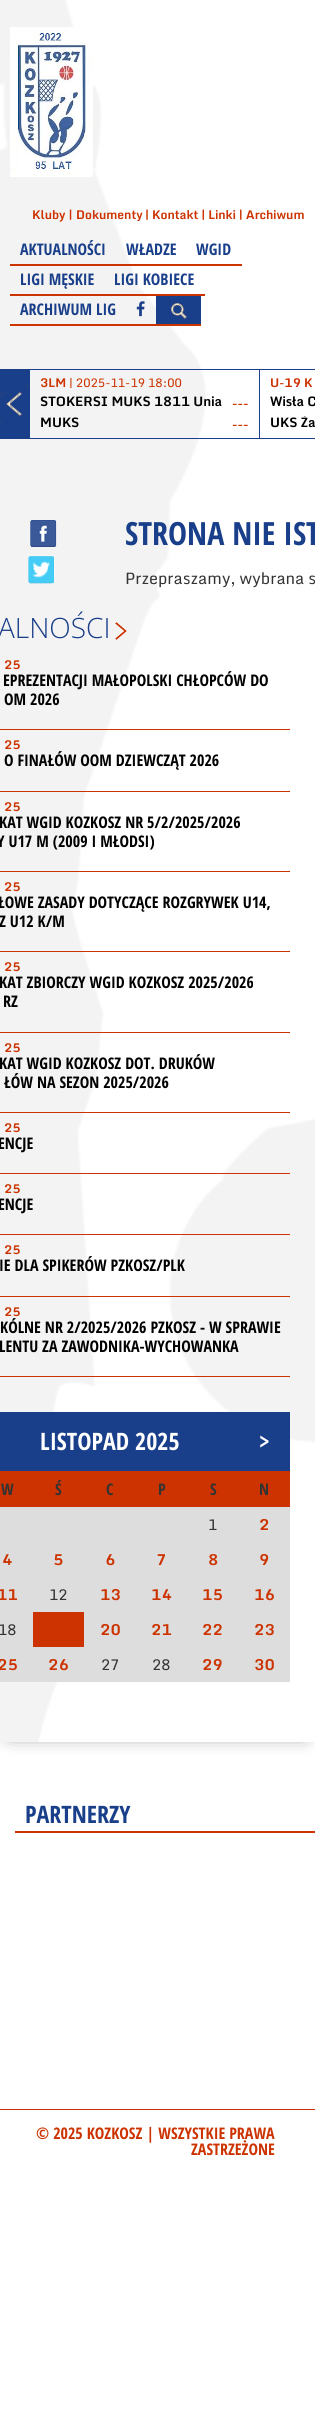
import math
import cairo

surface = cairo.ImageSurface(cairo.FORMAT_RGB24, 315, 2425)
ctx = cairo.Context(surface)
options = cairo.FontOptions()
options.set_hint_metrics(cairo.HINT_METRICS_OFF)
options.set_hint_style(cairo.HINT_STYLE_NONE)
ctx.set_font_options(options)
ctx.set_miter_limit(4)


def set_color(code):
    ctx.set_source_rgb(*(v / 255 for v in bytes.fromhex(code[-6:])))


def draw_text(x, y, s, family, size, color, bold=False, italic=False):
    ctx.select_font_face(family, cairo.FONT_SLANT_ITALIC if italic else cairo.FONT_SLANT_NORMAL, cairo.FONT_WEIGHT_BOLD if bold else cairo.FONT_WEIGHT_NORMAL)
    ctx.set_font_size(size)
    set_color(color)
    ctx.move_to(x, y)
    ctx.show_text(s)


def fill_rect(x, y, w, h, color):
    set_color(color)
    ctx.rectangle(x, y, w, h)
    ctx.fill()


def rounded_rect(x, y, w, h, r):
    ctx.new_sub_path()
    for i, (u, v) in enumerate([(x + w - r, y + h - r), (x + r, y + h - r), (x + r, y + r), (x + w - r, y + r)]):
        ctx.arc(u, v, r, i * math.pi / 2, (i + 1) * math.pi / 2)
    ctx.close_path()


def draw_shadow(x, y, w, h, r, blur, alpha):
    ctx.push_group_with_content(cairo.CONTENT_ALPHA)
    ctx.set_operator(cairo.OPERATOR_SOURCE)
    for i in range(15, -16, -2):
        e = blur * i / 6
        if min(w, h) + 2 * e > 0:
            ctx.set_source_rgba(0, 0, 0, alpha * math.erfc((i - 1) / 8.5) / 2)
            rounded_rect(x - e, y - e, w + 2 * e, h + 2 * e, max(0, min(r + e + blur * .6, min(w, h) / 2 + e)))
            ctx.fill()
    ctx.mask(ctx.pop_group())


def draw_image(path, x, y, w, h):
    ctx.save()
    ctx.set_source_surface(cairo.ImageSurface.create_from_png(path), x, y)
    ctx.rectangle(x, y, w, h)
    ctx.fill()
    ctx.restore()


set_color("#ffffff")
ctx.paint()
draw_image("assets/img1.png", 0, 0, 315, 1742)
draw_image("assets/img2.png", 10, 27, 83, 150)
draw_text(32, 219, "Kluby |", "Monda", 12, "#cc3300", bold=True)
ctx.save()
ctx.rectangle(32, 209, 273, 12)
ctx.clip()
draw_text(76, 219, "Dokumenty", "Monda", 12, "#cc3300", bold=True)
ctx.restore()
draw_text(145, 219, "| Kontakt | Linki | Archiwum", "Monda", 12, "#cc3300", bold=True)
fill_rect(10, 264, 232, 2, "#cc3300")
draw_text(20, 255, "AKTUALNOŚCI", "Open Sans Condensed", 16, "#193f8a", bold=True)
draw_text(126, 255, "WŁADZE", "Open Sans Condensed", 16, "#193f8a", bold=True)
draw_text(196, 255, "WGID", "Open Sans Condensed", 16, "#193f8a", bold=True)
fill_rect(10, 294, 195, 2, "#cc3300")
draw_text(20, 285, "LIGI MĘSKIE", "Open Sans Condensed", 16, "#193f8a", bold=True)
draw_text(114, 285, "LIGI KOBIECE", "Open Sans Condensed", 16, "#193f8a", bold=True)
fill_rect(10, 324, 191, 2, "#cc3300")
draw_text(20, 315, "ARCHIWUM LIG", "Open Sans Condensed", 16, "#193f8a", bold=True)
draw_image("assets/img3.png", 136, 301, 9, 16)
draw_image("assets/img4.png", 156, 296, 45, 28)
draw_image("assets/img5.png", 0, 369, 30, 70)
fill_rect(30, 369, 285, 1, "#193f8a")
fill_rect(259, 369, 1, 70, "#193f8a")
fill_rect(30, 438, 285, 1, "#193f8a")
draw_text(40, 387, "3LM", "Monda", 12, "#cc3300", bold=True)
draw_text(69, 387, "| 2025-11-19 18:00", "Monda", 12, "#cc3300")
draw_text(40, 406, "STOKERSI MUKS 1811 Unia", "Monda", 13, "#000000", bold=True)
draw_text(232, 408, "---", "Monda", 13, "#cc3300", bold=True)
draw_text(40, 427, "MUKS", "Monda", 13, "#000000", bold=True)
draw_text(232, 429, "---", "Monda", 13, "#cc3300", bold=True)
draw_text(270, 387, "U-19 K", "Monda", 12, "#cc3300", bold=True)
draw_text(270, 406, "Wisła C", "Monda", 13, "#000000", bold=True)
ctx.save()
ctx.rectangle(270, 416, 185, 13)
ctx.clip()
draw_text(270, 427, "UKS Ża", "Monda", 13, "#000000", bold=True)
ctx.restore()
draw_image("assets/img6.png", 30, 520, 27, 27)
draw_image("assets/img7.png", 28, 555, 27, 29)
draw_text(125, 545, "STRONA NIE IST", "Open Sans Condensed", 32, "#193f8a", bold=True)
draw_text(125, 584, "Przepraszamy, wybrana s", "Monda", 16, "#333333")
draw_text(-2, 638, "ALNOŚCI", "Open Sans Light", 28, "#193f8a")
draw_image("assets/img8.png", 115, 622, 12, 18)
fill_rect(0, 729, 290, 1, "#cc3300")
draw_text(4, 669, "25", "Monda", 12, "#cc3300", bold=True)
draw_text(3, 686, "EPREZENTACJI MAŁOPOLSKI CHŁOPCÓW DO", "Open Sans Condensed", 16, "#000000", bold=True)
draw_text(4, 705, "OM 2026", "Open Sans Condensed", 16, "#000000", bold=True)
fill_rect(0, 791, 290, 1, "#cc3300")
draw_text(4, 749, "25", "Monda", 12, "#cc3300", bold=True)
draw_text(4, 766, "O FINAŁÓW OOM DZIEWCZĄT 2026", "Open Sans Condensed", 16, "#000000", bold=True)
fill_rect(0, 871, 290, 1, "#cc3300")
draw_text(4, 811, "25", "Monda", 12, "#cc3300", bold=True)
draw_text(-1, 828, "KAT WGID KOZKOSZ NR 5/2/2025/2026", "Open Sans Condensed", 16, "#000000", bold=True)
draw_text(-3, 847, "Y U17 M (2009 I MŁODSI)", "Open Sans Condensed", 16, "#000000", bold=True)
fill_rect(0, 951, 290, 1, "#cc3300")
draw_text(4, 891, "25", "Monda", 12, "#cc3300", bold=True)
draw_text(-2, 908, "ŁOWE ZASADY DOTYCZĄCE ROZGRYWEK U14,", "Open Sans Condensed", 16, "#000000", bold=True)
draw_text(-1, 927, "Z U12 K/M", "Open Sans Condensed", 16, "#000000", bold=True)
fill_rect(0, 1032, 290, 1, "#cc3300")
draw_text(4, 971, "25", "Monda", 12, "#cc3300", bold=True)
draw_text(-1, 988, "KAT ZBIORCZY WGID KOZKOSZ 2025/2026", "Open Sans Condensed", 16, "#000000", bold=True)
draw_text(3, 1007, "RZ", "Open Sans Condensed", 16, "#000000", bold=True)
fill_rect(0, 1112, 290, 1, "#cc3300")
draw_text(4, 1052, "25", "Monda", 12, "#cc3300", bold=True)
draw_text(-1, 1069, "KAT WGID KOZKOSZ DOT. DRUKÓW", "Open Sans Condensed", 16, "#000000", bold=True)
draw_text(4, 1088, "ŁÓW NA SEZON 2025/2026", "Open Sans Condensed", 16, "#000000", bold=True)
fill_rect(0, 1173, 290, 1, "#cc3300")
draw_text(4, 1132, "25", "Monda", 12, "#cc3300", bold=True)
draw_text(-2, 1149, "ENCJE", "Open Sans Condensed", 16, "#000000", bold=True)
fill_rect(0, 1234, 290, 1, "#cc3300")
draw_text(4, 1193, "25", "Monda", 12, "#cc3300", bold=True)
draw_text(-2, 1210, "ENCJE", "Open Sans Condensed", 16, "#000000", bold=True)
fill_rect(0, 1296, 290, 1, "#cc3300")
draw_text(4, 1254, "25", "Monda", 12, "#cc3300", bold=True)
draw_text(-1, 1271, "IE DLA SPIKERÓW PZKOSZ/PLK", "Open Sans Condensed", 16, "#000000", bold=True)
fill_rect(0, 1376, 290, 1, "#cc3300")
draw_text(4, 1316, "25", "Monda", 12, "#cc3300", bold=True)
draw_text(0, 1333, "KÓLNE NR 2/2025/2026 PZKOSZ - W SPRAWIE", "Open Sans Condensed", 16, "#000000", bold=True)
draw_text(-1, 1352, "LENTU ZA ZAWODNIKA-WYCHOWANKA", "Open Sans Condensed", 16, "#000000", bold=True)
ctx.save()
ctx.rectangle(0, 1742, 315, 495)
ctx.clip()
set_color("#000000")
draw_shadow(10, 1652, 295, 80, 0, 10, 0.75)
ctx.restore()
fill_rect(0, 1507, 290, 175, "#dddddd")
fill_rect(0, 1412, 290, 59, "#193f8a")
draw_text(40, 1450, "LISTOPAD 2025", "Open Sans Condensed", 24, "#ffffff", bold=True)
draw_text(259, 1450, ">", "Open Sans Condensed", 24, "#ffffff", bold=True)
fill_rect(0, 1471, 290, 36, "#cc3300")
draw_text(1, 1495, "W", "Open Sans Condensed", 16, "#333333", bold=True)
draw_text(55, 1495, "Ś", "Open Sans Condensed", 16, "#333333", bold=True)
draw_text(106, 1495, "C", "Open Sans Condensed", 16, "#333333", bold=True)
draw_text(158, 1495, "P", "Open Sans Condensed", 16, "#333333", bold=True)
draw_text(210, 1495, "S", "Open Sans Condensed", 16, "#333333", bold=True)
draw_text(259, 1495, "N", "Open Sans Condensed", 16, "#333333", bold=True)
draw_text(208, 1530, "1", "Monda", 15, "#333333")
draw_text(259, 1530, "2", "Monda", 15, "#cc3300", bold=True)
draw_text(2, 1565, "4", "Monda", 15, "#cc3300", bold=True)
draw_text(53, 1565, "5", "Monda", 15, "#cc3300", bold=True)
draw_text(105, 1565, "6", "Monda", 15, "#cc3300", bold=True)
draw_text(156, 1565, "7", "Monda", 15, "#cc3300", bold=True)
draw_text(208, 1565, "8", "Monda", 15, "#cc3300", bold=True)
draw_text(259, 1565, "9", "Monda", 15, "#cc3300", bold=True)
draw_text(-3, 1600, "11", "Monda", 15, "#cc3300", bold=True)
draw_text(49, 1600, "12", "Monda", 15, "#333333")
draw_text(100, 1600, "13", "Monda", 15, "#cc3300", bold=True)
draw_text(151, 1600, "14", "Monda", 15, "#cc3300", bold=True)
draw_text(202, 1600, "15", "Monda", 15, "#cc3300", bold=True)
draw_text(254, 1600, "16", "Monda", 15, "#cc3300", bold=True)
draw_text(-2, 1635, "18", "Monda", 15, "#333333")
fill_rect(33, 1612, 51, 35, "#cc3300")
draw_text(100, 1635, "20", "Monda", 15, "#cc3300", bold=True)
draw_text(151, 1635, "21", "Monda", 15, "#cc3300", bold=True)
draw_text(202, 1635, "22", "Monda", 15, "#cc3300", bold=True)
draw_text(254, 1635, "23", "Monda", 15, "#cc3300", bold=True)
draw_text(-3, 1670, "25", "Monda", 15, "#cc3300", bold=True)
draw_text(48, 1670, "26", "Monda", 15, "#cc3300", bold=True)
draw_text(101, 1670, "27", "Monda", 15, "#333333")
draw_text(152, 1670, "28", "Monda", 15, "#333333")
draw_text(202, 1670, "29", "Monda", 15, "#cc3300", bold=True)
draw_text(254, 1670, "30", "Monda", 15, "#cc3300", bold=True)
fill_rect(15, 1831, 300, 2, "#cc3300")
draw_text(25, 1823, "PARTNERZY", "Open Sans Condensed", 24, "#193f8a", bold=True)
fill_rect(0, 2109, 315, 1, "#cc3300")
draw_text(36, 2139, "© 2025 KOZKOSZ | WSZYSTKIE PRAWA", "Open Sans Condensed", 16, "#cc3300", bold=True)
draw_text(191, 2155, "ZASTRZEŻONE", "Open Sans Condensed", 16, "#cc3300", bold=True)
surface.write_to_png("output.png")
